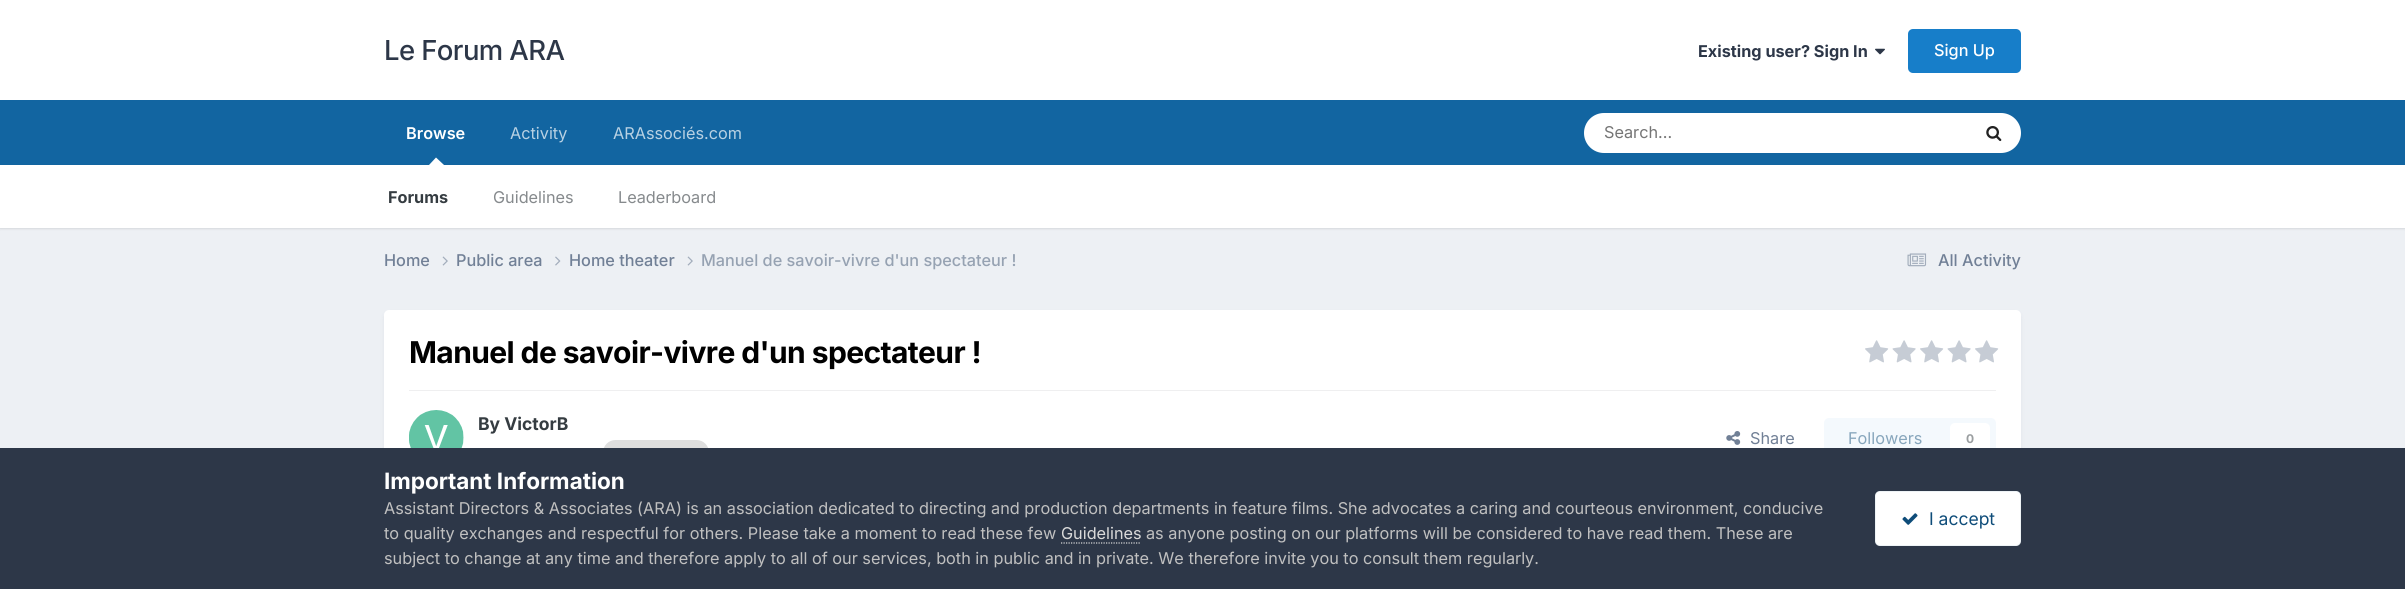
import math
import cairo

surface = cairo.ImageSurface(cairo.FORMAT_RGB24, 2405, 589)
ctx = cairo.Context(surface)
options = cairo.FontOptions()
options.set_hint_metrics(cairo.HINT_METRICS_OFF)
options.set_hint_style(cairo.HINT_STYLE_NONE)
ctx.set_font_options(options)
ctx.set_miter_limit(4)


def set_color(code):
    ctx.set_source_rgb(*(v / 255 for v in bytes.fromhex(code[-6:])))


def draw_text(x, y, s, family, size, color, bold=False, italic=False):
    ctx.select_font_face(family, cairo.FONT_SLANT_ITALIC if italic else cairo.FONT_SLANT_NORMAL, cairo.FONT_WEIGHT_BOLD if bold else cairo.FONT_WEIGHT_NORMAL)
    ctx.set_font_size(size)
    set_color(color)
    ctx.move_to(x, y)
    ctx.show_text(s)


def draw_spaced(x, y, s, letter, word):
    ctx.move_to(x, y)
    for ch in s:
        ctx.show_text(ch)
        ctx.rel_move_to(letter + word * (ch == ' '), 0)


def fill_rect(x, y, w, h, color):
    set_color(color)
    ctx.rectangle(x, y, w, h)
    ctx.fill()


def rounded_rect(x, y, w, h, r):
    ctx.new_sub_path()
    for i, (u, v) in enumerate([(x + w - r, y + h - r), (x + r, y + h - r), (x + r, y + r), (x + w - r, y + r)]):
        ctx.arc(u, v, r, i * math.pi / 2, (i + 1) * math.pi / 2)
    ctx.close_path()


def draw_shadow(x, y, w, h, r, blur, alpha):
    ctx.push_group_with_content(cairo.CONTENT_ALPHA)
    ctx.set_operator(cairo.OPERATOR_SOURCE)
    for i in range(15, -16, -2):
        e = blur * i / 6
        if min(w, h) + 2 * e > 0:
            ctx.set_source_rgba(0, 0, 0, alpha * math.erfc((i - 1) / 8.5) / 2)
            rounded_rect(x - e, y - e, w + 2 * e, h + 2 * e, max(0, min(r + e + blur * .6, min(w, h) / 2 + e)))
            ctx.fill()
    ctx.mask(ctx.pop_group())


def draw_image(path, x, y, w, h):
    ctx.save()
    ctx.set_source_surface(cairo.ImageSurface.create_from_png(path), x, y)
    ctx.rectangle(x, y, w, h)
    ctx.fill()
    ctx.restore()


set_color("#edf0f4")
ctx.paint()
fill_rect(0, 0, 2405, 100, "#ffffff")
ctx.select_font_face("Inter Medium")
ctx.set_font_size(27.5)
set_color("#2d3748")
draw_spaced(384, 60, "Le Forum ARA", -0.6, 0)
draw_text(1698, 57, "Existing user? Sign In", "Inter", 16.25, "#2d3748", bold=True)
draw_image("assets/img1.png", 1875, 48, 10, 7)
set_color("#177ec9")
rounded_rect(1908, 29, 113, 44, 5)
ctx.fill()
draw_text(1934, 56, "Sign Up", "Inter Medium", 16.25, "#ffffff")
fill_rect(0, 100, 2405, 65, "#1265a1")
draw_text(510, 139, "Activity", "Inter", 16.25, "#b8d1e3")
draw_text(613, 139, "ARAssociés.com", "Inter", 16.25, "#b8d1e3")
draw_text(406, 139, "Browse", "Inter SemiBold", 16.25, "#ffffff")
set_color("#000000")
draw_shadow(0, 166, 2405, 63, 0, 1, 0.1)
set_color("#ffffff")
ctx.new_path()
ctx.move_to(444, 165)
ctx.line_to(429, 165)
ctx.line_to(436, 157.5)
ctx.close_path()
ctx.fill()
fill_rect(0, 165, 2405, 63, "#ffffff")
draw_text(388, 203, "Forums", "Inter", 16.25, "#353c41", bold=True)
draw_text(493, 203, "Guidelines", "Inter", 16.25, "#868a8d")
draw_text(618, 203, "Leaderboard", "Inter", 16.25, "#868a8d")
set_color("#ffffff")
rounded_rect(1584, 113, 437, 40, 20)
ctx.fill()
draw_text(1604, 138, "Search...", "Inter", 16.25, "#757575")
draw_image("assets/img2.png", 1986, 126, 16, 16)
draw_text(384, 266, "Home", "Inter Medium", 16.25, "#718096")
draw_image("assets/img3.png", 442, 256, 6, 10)
draw_text(456, 266, "Public area", "Inter Medium", 16.25, "#718096")
draw_image("assets/img4.png", 555, 256, 6, 10)
draw_text(569, 266, "Home theater", "Inter Medium", 16.25, "#718096")
draw_image("assets/img3.png", 687, 256, 6, 10)
draw_text(701, 266, "Manuel de savoir-vivre d'un spectateur !", "Inter Medium", 16.25, "#96a2b2")
draw_image("assets/img5.png", 1907, 253, 20, 14)
draw_text(1938, 266, "All Activity", "Inter Medium", 16.25, "#718096")
set_color("#2d3748")
draw_shadow(385, 314, 1635, 177, 4, 2.5, 0.1)
set_color("#ffffff")
rounded_rect(384, 310, 1637, 180, 5)
ctx.fill()
ctx.select_font_face("Inter", cairo.FONT_SLANT_NORMAL, cairo.FONT_WEIGHT_BOLD)
ctx.set_font_size(30)
set_color("#000000")
draw_spaced(409, 363, "Manuel de savoir-vivre d'un spectateur !", -0.6, 0)
draw_image("assets/img6.png", 1865, 340, 24, 23)
draw_image("assets/img7.png", 1892, 340, 24, 23)
draw_image("assets/img6.png", 1920, 340, 24, 23)
draw_image("assets/img7.png", 1947, 340, 24, 23)
draw_image("assets/img6.png", 1975, 340, 24, 23)
fill_rect(409, 390, 1587, 1, "#efeff0")
draw_image("assets/img8.png", 409, 410, 55, 38)
draw_text(478, 430, "By VictorB", "Inter", 17.5, "#353c41", bold=True)
set_color("#dedede")
rounded_rect(603, 440, 106, 25, 12.5)
ctx.fill()
draw_image("assets/img9.png", 1726, 431, 15, 14)
draw_text(1750, 444, "Share", "Inter", 16.25, "#718096")
set_color("#f4f9fd")
rounded_rect(1824, 418, 172, 41, 5)
ctx.fill()
draw_text(1848, 444, "Followers", "Inter", 16.25, "#87a6bc")
set_color("#ffffff")
rounded_rect(1950, 423, 40, 30, 5)
ctx.fill()
draw_text(1966, 443, "0", "Inter", 12, "#9a9ea0", bold=True)
fill_rect(0, 448, 2405, 141, "#2d3748")
draw_text(384, 489, "Important Information", "Inter", 22.5, "#ffffff", bold=True)
draw_text(384, 514, "Assistant Directors & Associates (ARA) is an association dedicated to directing and production departments in feature films. She advocates a caring and courteous environment, conducive", "Inter", 16.25, "#c0c0c0")
draw_text(384, 539, "to quality exchanges and respectful for others. Please take a moment to read these few", "Inter", 16.25, "#c0c0c0")
draw_text(1061, 539, "Guidelines", "Inter", 16.25, "#dadada")
ctx.new_path()
ctx.move_to(1061, 543)
ctx.line_to(1141, 543)
ctx.set_line_width(1.2)
ctx.set_dash([1.25, 1.25])
ctx.stroke()
draw_text(1146, 539, "as anyone posting on our platforms will be considered to have read them. These are", "Inter", 16.25, "#c0c0c0")
draw_text(384, 564, "subject to change at any time and therefore apply to all of our services, both in public and in private. We therefore invite you to consult them regularly.", "Inter", 16.25, "#c0c0c0")
set_color("#ffffff")
rounded_rect(1875, 491, 146, 55, 5)
ctx.fill()
rounded_rect(1875.5, 491.5, 145, 54, 4.5)
ctx.set_source_rgba(0.055, 0.298, 0.475, 0.07)
ctx.set_line_width(1)
ctx.set_dash([])
ctx.stroke()
draw_image("assets/img10.png", 1902, 513, 16, 12)
draw_text(1929, 525, "I accept", "Inter", 17.5, "#0e4c79")
surface.write_to_png("output.png")
